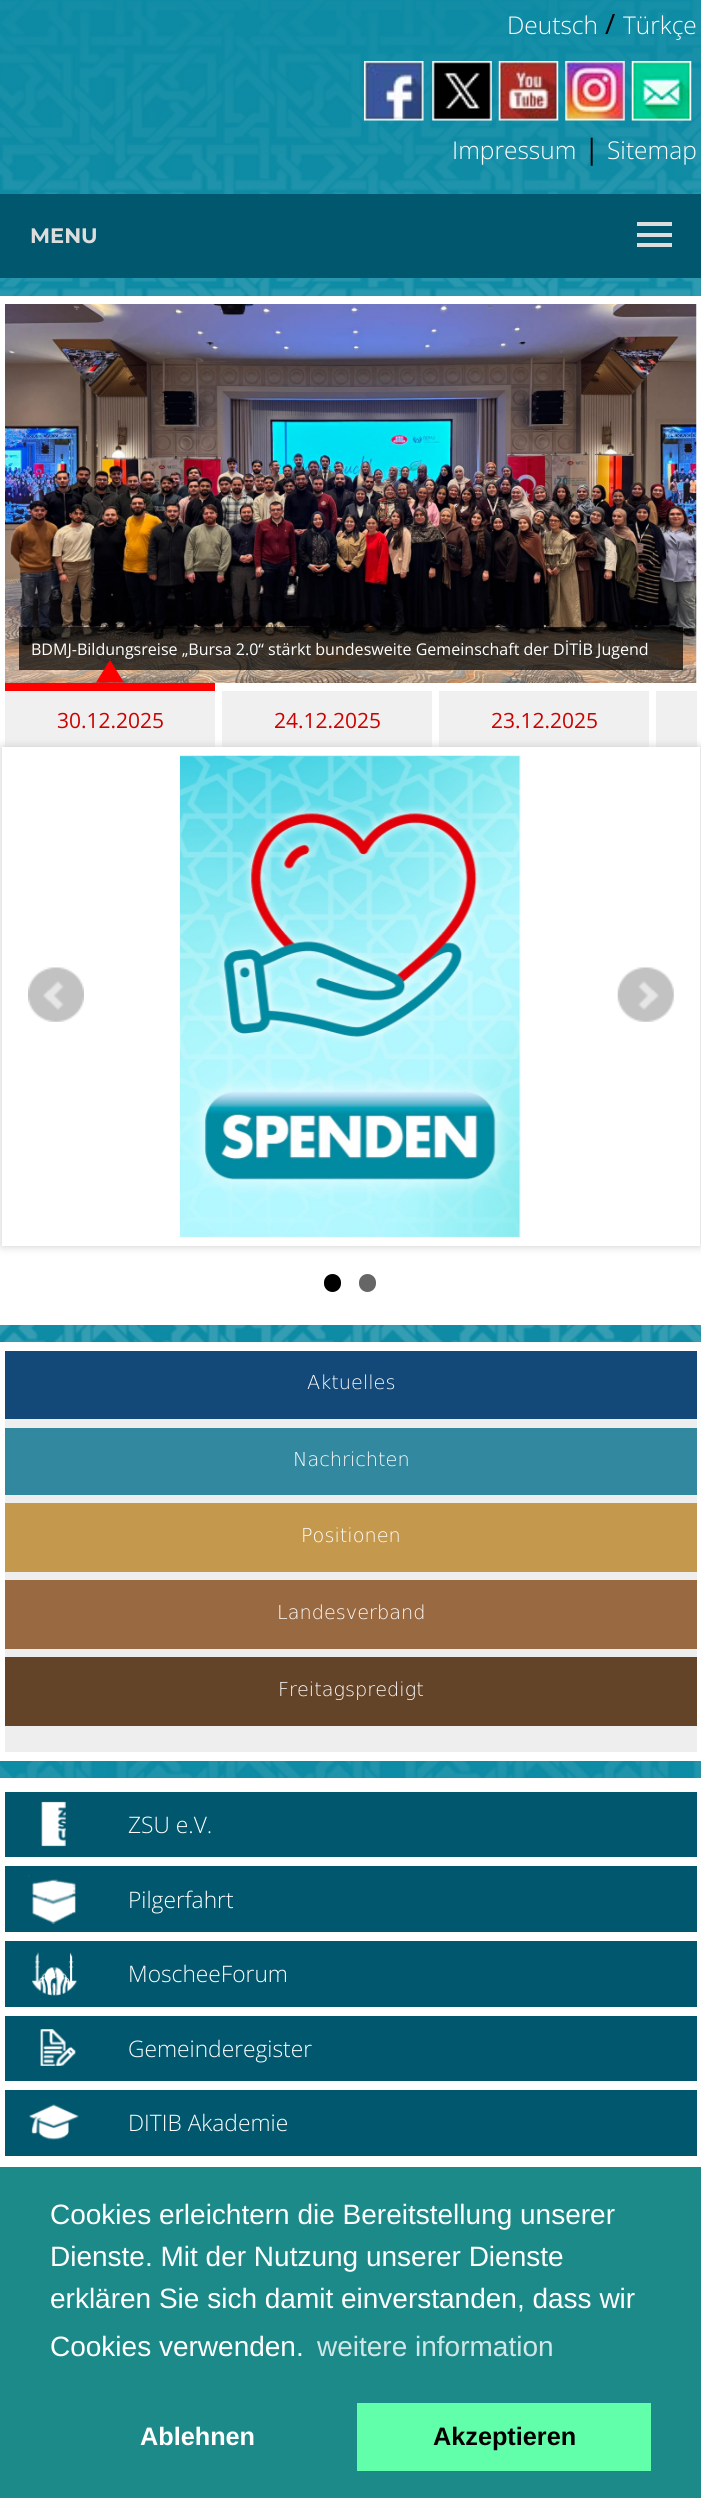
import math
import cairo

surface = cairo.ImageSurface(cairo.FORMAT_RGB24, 701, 2498)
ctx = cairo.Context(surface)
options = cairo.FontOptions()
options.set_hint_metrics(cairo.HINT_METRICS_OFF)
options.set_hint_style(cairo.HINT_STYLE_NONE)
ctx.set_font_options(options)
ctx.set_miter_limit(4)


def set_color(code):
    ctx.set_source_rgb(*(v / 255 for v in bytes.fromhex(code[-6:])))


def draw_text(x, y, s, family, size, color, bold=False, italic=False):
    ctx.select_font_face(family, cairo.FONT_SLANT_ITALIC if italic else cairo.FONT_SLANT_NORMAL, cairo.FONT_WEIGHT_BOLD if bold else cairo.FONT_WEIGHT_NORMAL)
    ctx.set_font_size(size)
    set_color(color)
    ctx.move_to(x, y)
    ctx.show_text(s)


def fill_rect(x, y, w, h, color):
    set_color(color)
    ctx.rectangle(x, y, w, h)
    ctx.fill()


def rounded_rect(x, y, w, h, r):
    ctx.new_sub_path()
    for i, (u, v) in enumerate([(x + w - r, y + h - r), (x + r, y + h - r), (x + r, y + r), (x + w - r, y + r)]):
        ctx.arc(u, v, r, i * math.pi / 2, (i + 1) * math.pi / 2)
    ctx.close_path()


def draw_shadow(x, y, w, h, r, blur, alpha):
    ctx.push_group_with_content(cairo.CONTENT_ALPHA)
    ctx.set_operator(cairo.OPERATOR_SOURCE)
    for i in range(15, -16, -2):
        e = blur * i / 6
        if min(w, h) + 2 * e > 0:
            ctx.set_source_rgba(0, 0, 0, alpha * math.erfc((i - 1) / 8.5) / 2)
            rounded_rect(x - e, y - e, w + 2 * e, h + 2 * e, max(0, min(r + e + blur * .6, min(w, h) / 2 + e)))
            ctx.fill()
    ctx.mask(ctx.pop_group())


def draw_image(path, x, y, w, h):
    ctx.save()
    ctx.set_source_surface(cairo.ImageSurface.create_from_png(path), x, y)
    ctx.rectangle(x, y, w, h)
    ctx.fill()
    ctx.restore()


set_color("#0c8aa4")
ctx.paint()
draw_image("assets/img1.png", 0, 0, 701, 1778)
draw_text(507, 34, "Deutsch", "Open Sans Light", 24.5, "#ffffff")
draw_text(605, 34, "/", "Open Sans", 28, "#000000")
draw_text(623, 34, "Türkçe", "Open Sans Light", 24.5, "#ffffff")
draw_image("assets/img2.png", 364, 61, 60, 60)
draw_image("assets/img3.png", 432, 61, 60, 60)
draw_image("assets/img4.png", 498, 61, 61, 60)
draw_image("assets/img5.png", 565, 61, 60, 60)
draw_image("assets/img6.png", 631, 61, 61, 60)
draw_text(452, 159, "Impressum", "Open Sans Light", 24.5, "#ffffff")
draw_text(584, 159, "|", "Open Sans", 28, "#000000")
draw_text(607, 159, "Sitemap", "Open Sans Light", 24.5, "#ffffff")
fill_rect(0, 194, 701, 84, "#01576e")
fill_rect(637, 222, 35, 4, "#dddddd")
draw_text(30, 243, "MENU", "Montserrat", 21, "#dddddd", bold=True)
fill_rect(637, 233, 35, 4, "#dddddd")
fill_rect(637, 243, 35, 4, "#dddddd")
fill_rect(0, 296, 701, 1029, "#ffffff")
draw_image("assets/img7.png", 5, 304, 692, 379)
ctx.set_source_rgba(0, 0, 0, 0.7)
ctx.rectangle(19, 627, 664, 43)
ctx.fill()
draw_text(31, 655, "BDMJ-Bildungsreise „Bursa 2.0“ stärkt bundesweite Gemeinschaft der DİTİB Jugend", "Open Sans", 16.05, "#ffffff")
set_color("#ff0000")
ctx.new_path()
ctx.move_to(124, 682.5)
ctx.line_to(96, 682.5)
ctx.line_to(110, 660)
ctx.close_path()
ctx.fill()
fill_rect(5, 683, 210, 8, "#ff0000")
fill_rect(5, 691, 210, 56, "#f0f0f0")
draw_text(57, 728, "30.12.2025", "Open Sans", 21, "#cc0000")
fill_rect(222, 691, 210, 56, "#f0f0f0")
draw_text(274, 728, "24.12.2025", "Open Sans", 21, "#cc0000")
fill_rect(439, 691, 210, 56, "#f0f0f0")
draw_text(491, 728, "23.12.2025", "Open Sans", 21, "#cc0000")
fill_rect(656, 691, 41, 56, "#f0f0f0")
set_color("#cccccc")
draw_shadow(2, 747, 698, 499, 0, 4.5, 1)
fill_rect(2, 747, 698, 499, "#ffffff")
draw_image("assets/img8.png", 180, 755, 341, 482)
draw_image("assets/img9.png", 28, 967, 56, 55)
draw_image("assets/img10.png", 617, 967, 57, 55)
set_color("#000000")
rounded_rect(324, 1274, 17, 18, 8.5)
ctx.fill()
set_color("#666666")
rounded_rect(359, 1274, 17, 18, 8.5)
ctx.fill()
fill_rect(0, 1342, 701, 419, "#ffffff")
fill_rect(5, 1419, 692, 333, "#eeeeee")
fill_rect(5, 1351, 692, 68, "#134978")
draw_text(307, 1389, "Aktuelles", "DejaVu Sans ExtraLight", 19.25, "#ffffff")
fill_rect(5, 1428, 692, 67, "#31889f")
draw_text(293, 1466, "Nachrichten", "DejaVu Sans ExtraLight", 19.25, "#ffffff")
fill_rect(5, 1503, 692, 69, "#c4994e")
draw_text(301, 1542, "Positionen", "DejaVu Sans ExtraLight", 19.25, "#ffffff")
fill_rect(5, 1580, 692, 69, "#996a42")
draw_text(277, 1619, "Landesverband", "DejaVu Sans ExtraLight", 19.25, "#ffffff")
fill_rect(5, 1657, 692, 69, "#634429")
draw_text(278, 1696, "Freitagspredigt", "DejaVu Sans ExtraLight", 19.25, "#ffffff")
fill_rect(0, 1778, 701, 389, "#ffffff")
fill_rect(5, 1792, 692, 65, "#01576e")
draw_image("assets/img11.png", 41, 1801, 25, 46)
draw_text(128, 1833, "ZSU e.V.", "Open Sans Light", 22.75, "#ffffff")
fill_rect(5, 1866, 692, 66, "#01576e")
draw_image("assets/img12.png", 28, 1875, 48, 49)
draw_text(128, 1908, "Pilgerfahrt", "Open Sans Light", 22.75, "#ffffff")
fill_rect(5, 1941, 692, 66, "#01576e")
draw_image("assets/img13.png", 32, 1952, 46, 44)
draw_text(128, 1982, "MoscheeForum", "Open Sans Light", 22.75, "#ffffff")
fill_rect(5, 2016, 692, 65, "#01576e")
draw_image("assets/img14.png", 40, 2029, 36, 37)
draw_text(128, 2057, "Gemeinderegister", "Open Sans Light", 22.75, "#ffffff")
fill_rect(5, 2090, 692, 66, "#01576e")
draw_image("assets/img15.png", 29, 2104, 50, 36)
draw_text(128, 2131, "DITIB Akademie", "Open Sans Light", 22.75, "#ffffff")
fill_rect(0, 2167, 701, 331, "#1d8a8a")
draw_text(50, 2224, "Cookies erleichtern die Bereitstellung unserer", "Liberation Sans", 28, "#ffffff")
draw_text(50, 2266, "Dienste. Mit der Nutzung unserer Dienste", "Liberation Sans", 28, "#ffffff")
draw_text(50, 2308, "erklären Sie sich damit einverstanden, dass wir", "Liberation Sans", 28, "#ffffff")
draw_text(50, 2356, "Cookies verwenden.", "Liberation Sans", 28, "#ffffff")
draw_text(317, 2356, "weitere information", "Liberation Sans", 28, "#d2e8e8")
draw_text(140, 2445, "Ablehnen", "Liberation Sans", 25.25, "#ffffff", bold=True)
fill_rect(357, 2403, 294, 68, "#62ffaa")
draw_text(433, 2445, "Akzeptieren", "Liberation Sans", 25.25, "#000000", bold=True)
surface.write_to_png("output.png")
